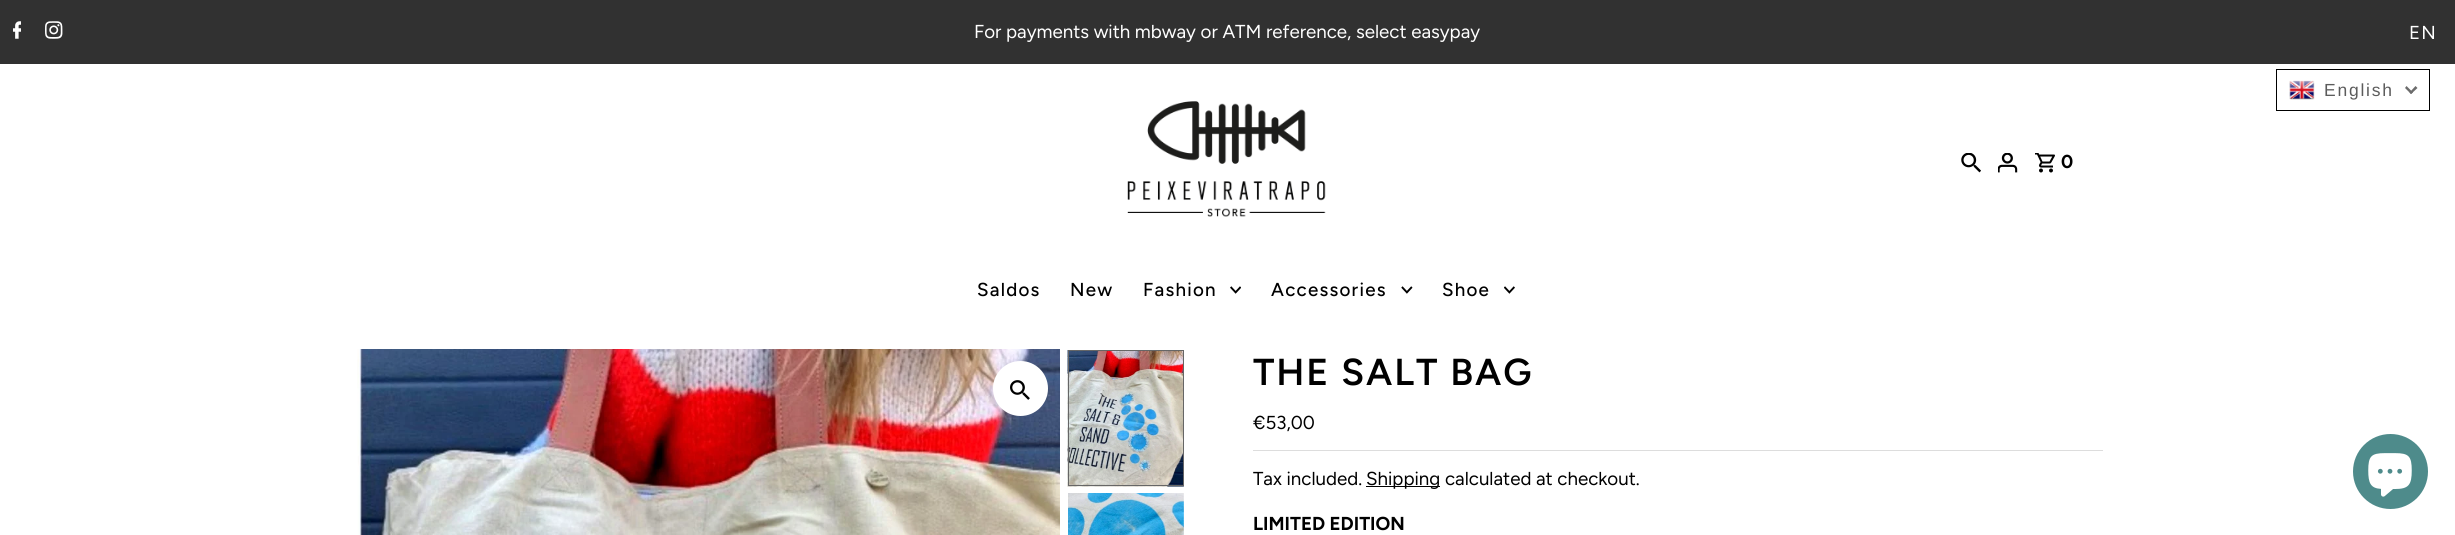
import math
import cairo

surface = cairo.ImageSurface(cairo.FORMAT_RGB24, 2455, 535)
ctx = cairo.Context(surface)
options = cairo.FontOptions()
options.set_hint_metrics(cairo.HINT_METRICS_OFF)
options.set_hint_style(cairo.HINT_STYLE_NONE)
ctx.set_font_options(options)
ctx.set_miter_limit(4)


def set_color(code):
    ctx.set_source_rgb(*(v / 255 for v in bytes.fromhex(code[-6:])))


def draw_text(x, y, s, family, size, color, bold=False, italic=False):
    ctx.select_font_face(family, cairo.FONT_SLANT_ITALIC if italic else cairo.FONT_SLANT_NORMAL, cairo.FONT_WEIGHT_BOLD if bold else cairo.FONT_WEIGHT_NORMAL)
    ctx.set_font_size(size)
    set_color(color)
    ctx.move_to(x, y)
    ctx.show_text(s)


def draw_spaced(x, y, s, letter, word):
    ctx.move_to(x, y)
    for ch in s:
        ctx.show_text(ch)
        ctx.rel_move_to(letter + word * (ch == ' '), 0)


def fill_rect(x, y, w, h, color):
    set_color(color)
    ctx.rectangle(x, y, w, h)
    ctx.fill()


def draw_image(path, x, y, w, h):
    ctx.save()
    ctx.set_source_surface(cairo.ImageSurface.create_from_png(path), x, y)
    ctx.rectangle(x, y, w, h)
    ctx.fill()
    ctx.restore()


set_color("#ffffff")
ctx.paint()
fill_rect(0, 0, 2455, 64, "#313131")
draw_image("assets/img1.png", 13, 21, 8, 18)
draw_image("assets/img2.png", 45, 21, 18, 18)
draw_text(974, 38, "For payments with mbway or ATM reference, select easypay", "Figtree", 18.75, "#ffffff")
draw_spaced(2409, 39, "EN", 1.25, 0)
draw_image("assets/img3.png", 1127, 101, 199, 116)
draw_image("assets/img4.png", 1961, 153, 20, 20)
draw_image("assets/img5.png", 1998, 153, 20, 20)
draw_image("assets/img6.png", 2035, 153, 20, 20)
ctx.select_font_face("Figtree", cairo.FONT_SLANT_NORMAL, cairo.FONT_WEIGHT_BOLD)
set_color("#000000")
draw_spaced(2061, 168, "0", 1.25, 0)
ctx.select_font_face("Figtree Medium")
draw_spaced(977, 296, "Saldos", 1.25, 0)
draw_spaced(1070, 296, "New", 1.25, 0)
draw_spaced(1143, 296, "Fashion", 1.25, 0)
draw_image("assets/img7.png", 1230, 286, 11, 8)
draw_spaced(1271, 296, "Accessories", 1.25, 0)
draw_image("assets/img8.png", 1401, 286, 12, 8)
draw_spaced(1442, 296, "Shoe", 1.25, 0)
draw_image("assets/img9.png", 1504, 286, 11, 8)
draw_image("assets/img10.png", 357, 349, 703, 186)
set_color("#ffffff")
ctx.arc(1020.5, 388.5, 27.5, 0, 2 * math.pi)
ctx.fill()
draw_image("assets/img11.png", 1010, 380, 20, 20)
draw_image("assets/img12.png", 1067, 350, 117, 137)
ctx.rectangle(1068.5, 350.5, 115, 135)
set_color("#666666")
ctx.set_line_width(1)
ctx.stroke()
draw_image("assets/img13.png", 1068, 493, 116, 42)
ctx.select_font_face("Figtree SemiBold")
ctx.set_font_size(37.5)
set_color("#000000")
draw_spaced(1253, 385, "THE SALT BAG", 1.9, 0)
fill_rect(1253, 450, 850, 1, "#dddddd")
draw_text(1253, 429, "€53,00", "Figtree", 18.75, "#000000")
draw_text(1253, 485, "Tax included.", "Figtree", 18.75, "#000000")
fill_rect(1366, 486, 74, 1, "#000000")
draw_text(1366, 485, "Shipping calculated at checkout.", "Figtree", 18.75, "#000000")
draw_text(1253, 530, "LIMITED EDITION", "Figtree", 18.75, "#000000", bold=True)
ctx.rectangle(2276.5, 69.5, 153, 41)
ctx.stroke()
draw_image("assets/img14.png", 2289, 80, 26, 20)
ctx.select_font_face("Liberation Sans")
ctx.set_font_size(17.5)
set_color("#5c5c5c")
draw_spaced(2324, 96, "English", 1.75, 0)
set_color("#6c6c6c")
ctx.new_path()
ctx.move_to(2415.5, 86)
ctx.line_to(2417.5, 88)
ctx.line_to(2411, 94)
ctx.line_to(2409.5, 92.5)
ctx.close_path()
ctx.fill()
ctx.new_path()
ctx.move_to(2406.5, 86)
ctx.line_to(2413, 92.5)
ctx.line_to(2411, 94)
ctx.line_to(2405, 88)
ctx.close_path()
ctx.fill()
set_color("#4e8b8b")
ctx.arc(2390.5, 471.5, 37.5, 0, 2 * math.pi)
ctx.fill()
draw_image("assets/img15.png", 2368, 453, 44, 44)
surface.write_to_png("output.png")
